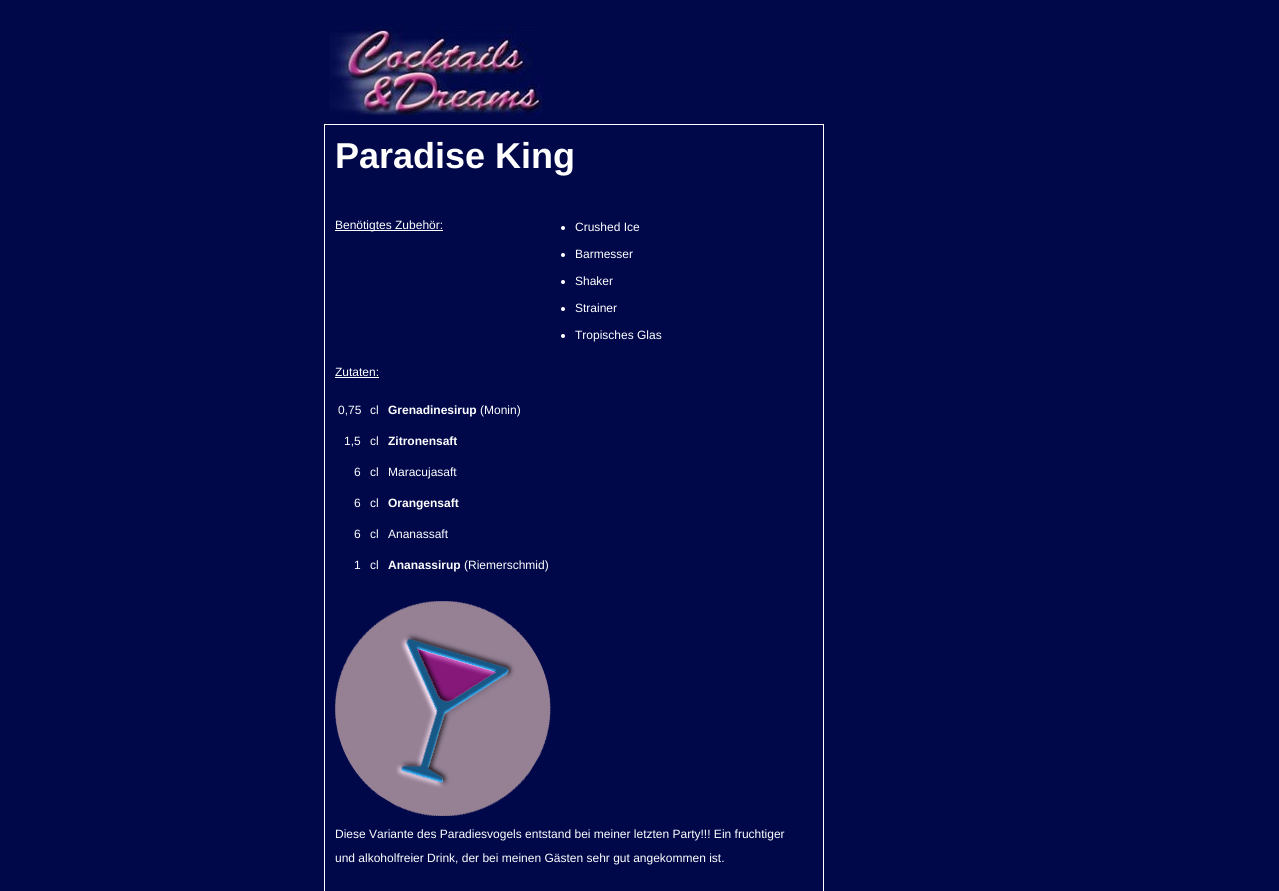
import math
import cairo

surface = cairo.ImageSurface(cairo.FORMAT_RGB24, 1279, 891)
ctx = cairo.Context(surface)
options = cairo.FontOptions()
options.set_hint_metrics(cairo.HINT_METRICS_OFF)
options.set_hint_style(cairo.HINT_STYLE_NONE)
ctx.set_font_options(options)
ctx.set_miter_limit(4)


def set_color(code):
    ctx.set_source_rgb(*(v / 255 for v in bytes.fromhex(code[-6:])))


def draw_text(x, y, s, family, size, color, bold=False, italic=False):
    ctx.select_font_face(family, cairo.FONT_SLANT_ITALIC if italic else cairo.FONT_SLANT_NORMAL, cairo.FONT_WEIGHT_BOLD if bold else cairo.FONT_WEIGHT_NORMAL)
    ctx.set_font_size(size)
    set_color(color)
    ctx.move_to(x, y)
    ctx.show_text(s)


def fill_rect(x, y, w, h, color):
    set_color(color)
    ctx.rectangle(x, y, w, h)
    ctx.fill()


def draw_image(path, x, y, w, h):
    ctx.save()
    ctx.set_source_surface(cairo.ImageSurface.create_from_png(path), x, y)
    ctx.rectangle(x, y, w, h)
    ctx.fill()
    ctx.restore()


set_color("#00084a")
ctx.paint()
draw_image("assets/img1.png", 330, 27, 213, 88)
ctx.rectangle(324.5, 124.5, 499, 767)
set_color("#ffffff")
ctx.set_line_width(1)
ctx.stroke()
draw_text(335, 168, "Paradise King", "Liberation Sans", 36, "#ffffff", bold=True)
fill_rect(335, 230, 108, 1, "#ffffff")
draw_text(335, 229, "Benötigtes Zubehör:", "Liberation Sans", 12, "#ffffff")
ctx.new_path()
ctx.arc(563, 228, 2, 0, 2 * math.pi)
ctx.fill()
draw_text(575, 231, "Crushed Ice", "Liberation Sans", 12, "#ffffff")
ctx.new_path()
ctx.arc(563, 255, 2, 0, 2 * math.pi)
ctx.fill()
draw_text(575, 258, "Barmesser", "Liberation Sans", 12, "#ffffff")
ctx.new_path()
ctx.arc(563, 282, 2, 0, 2 * math.pi)
ctx.fill()
draw_text(575, 285, "Shaker", "Liberation Sans", 12, "#ffffff")
ctx.new_path()
ctx.arc(563, 309, 2, 0, 2 * math.pi)
ctx.fill()
draw_text(575, 312, "Strainer", "Liberation Sans", 12, "#ffffff")
ctx.new_path()
ctx.arc(563, 336, 2, 0, 2 * math.pi)
ctx.fill()
draw_text(575, 339, "Tropisches Glas", "Liberation Sans", 12, "#ffffff")
draw_text(335, 376, "Zutaten:", "Liberation Sans", 12, "#ffffff")
fill_rect(335, 377, 44, 1, "#ffffff")
draw_text(338, 414, "0,75", "Liberation Sans", 12, "#ffffff")
draw_text(370, 414, "cl", "Liberation Sans", 12, "#ffffff")
draw_text(388, 414, "Grenadinesirup", "Liberation Sans", 12, "#ffffff", bold=True)
draw_text(480, 414, "(Monin)", "Liberation Sans", 12, "#ffffff")
draw_text(344, 445, "1,5", "Liberation Sans", 12, "#ffffff")
draw_text(370, 445, "cl", "Liberation Sans", 12, "#ffffff")
draw_text(388, 445, "Zitronensaft", "Liberation Sans", 12, "#ffffff", bold=True)
draw_text(354, 476, "6", "Liberation Sans", 12, "#ffffff")
draw_text(370, 476, "cl", "Liberation Sans", 12, "#ffffff")
draw_text(388, 476, "Maracujasaft", "Liberation Sans", 12, "#ffffff")
draw_text(354, 507, "6", "Liberation Sans", 12, "#ffffff")
draw_text(370, 507, "cl", "Liberation Sans", 12, "#ffffff")
draw_text(388, 507, "Orangensaft", "Liberation Sans", 12, "#ffffff", bold=True)
draw_text(354, 538, "6", "Liberation Sans", 12, "#ffffff")
draw_text(370, 538, "cl", "Liberation Sans", 12, "#ffffff")
draw_text(388, 538, "Ananassaft", "Liberation Sans", 12, "#ffffff")
draw_text(354, 569, "1", "Liberation Sans", 12, "#ffffff")
draw_text(370, 569, "cl", "Liberation Sans", 12, "#ffffff")
draw_text(388, 569, "Ananassirup", "Liberation Sans", 12, "#ffffff", bold=True)
draw_text(464, 569, "(Riemerschmid)", "Liberation Sans", 12, "#ffffff")
draw_image("assets/img2.png", 335, 601, 216, 215)
draw_text(335, 838, "Diese Variante des Paradiesvogels entstand bei meiner letzten Party!!! Ein fruchtiger", "Liberation Sans", 12, "#ffffff")
draw_text(335, 862, "und alkoholfreier Drink, der bei meinen Gästen sehr gut angekommen ist.", "Liberation Sans", 12, "#ffffff")
surface.write_to_png("output.png")
